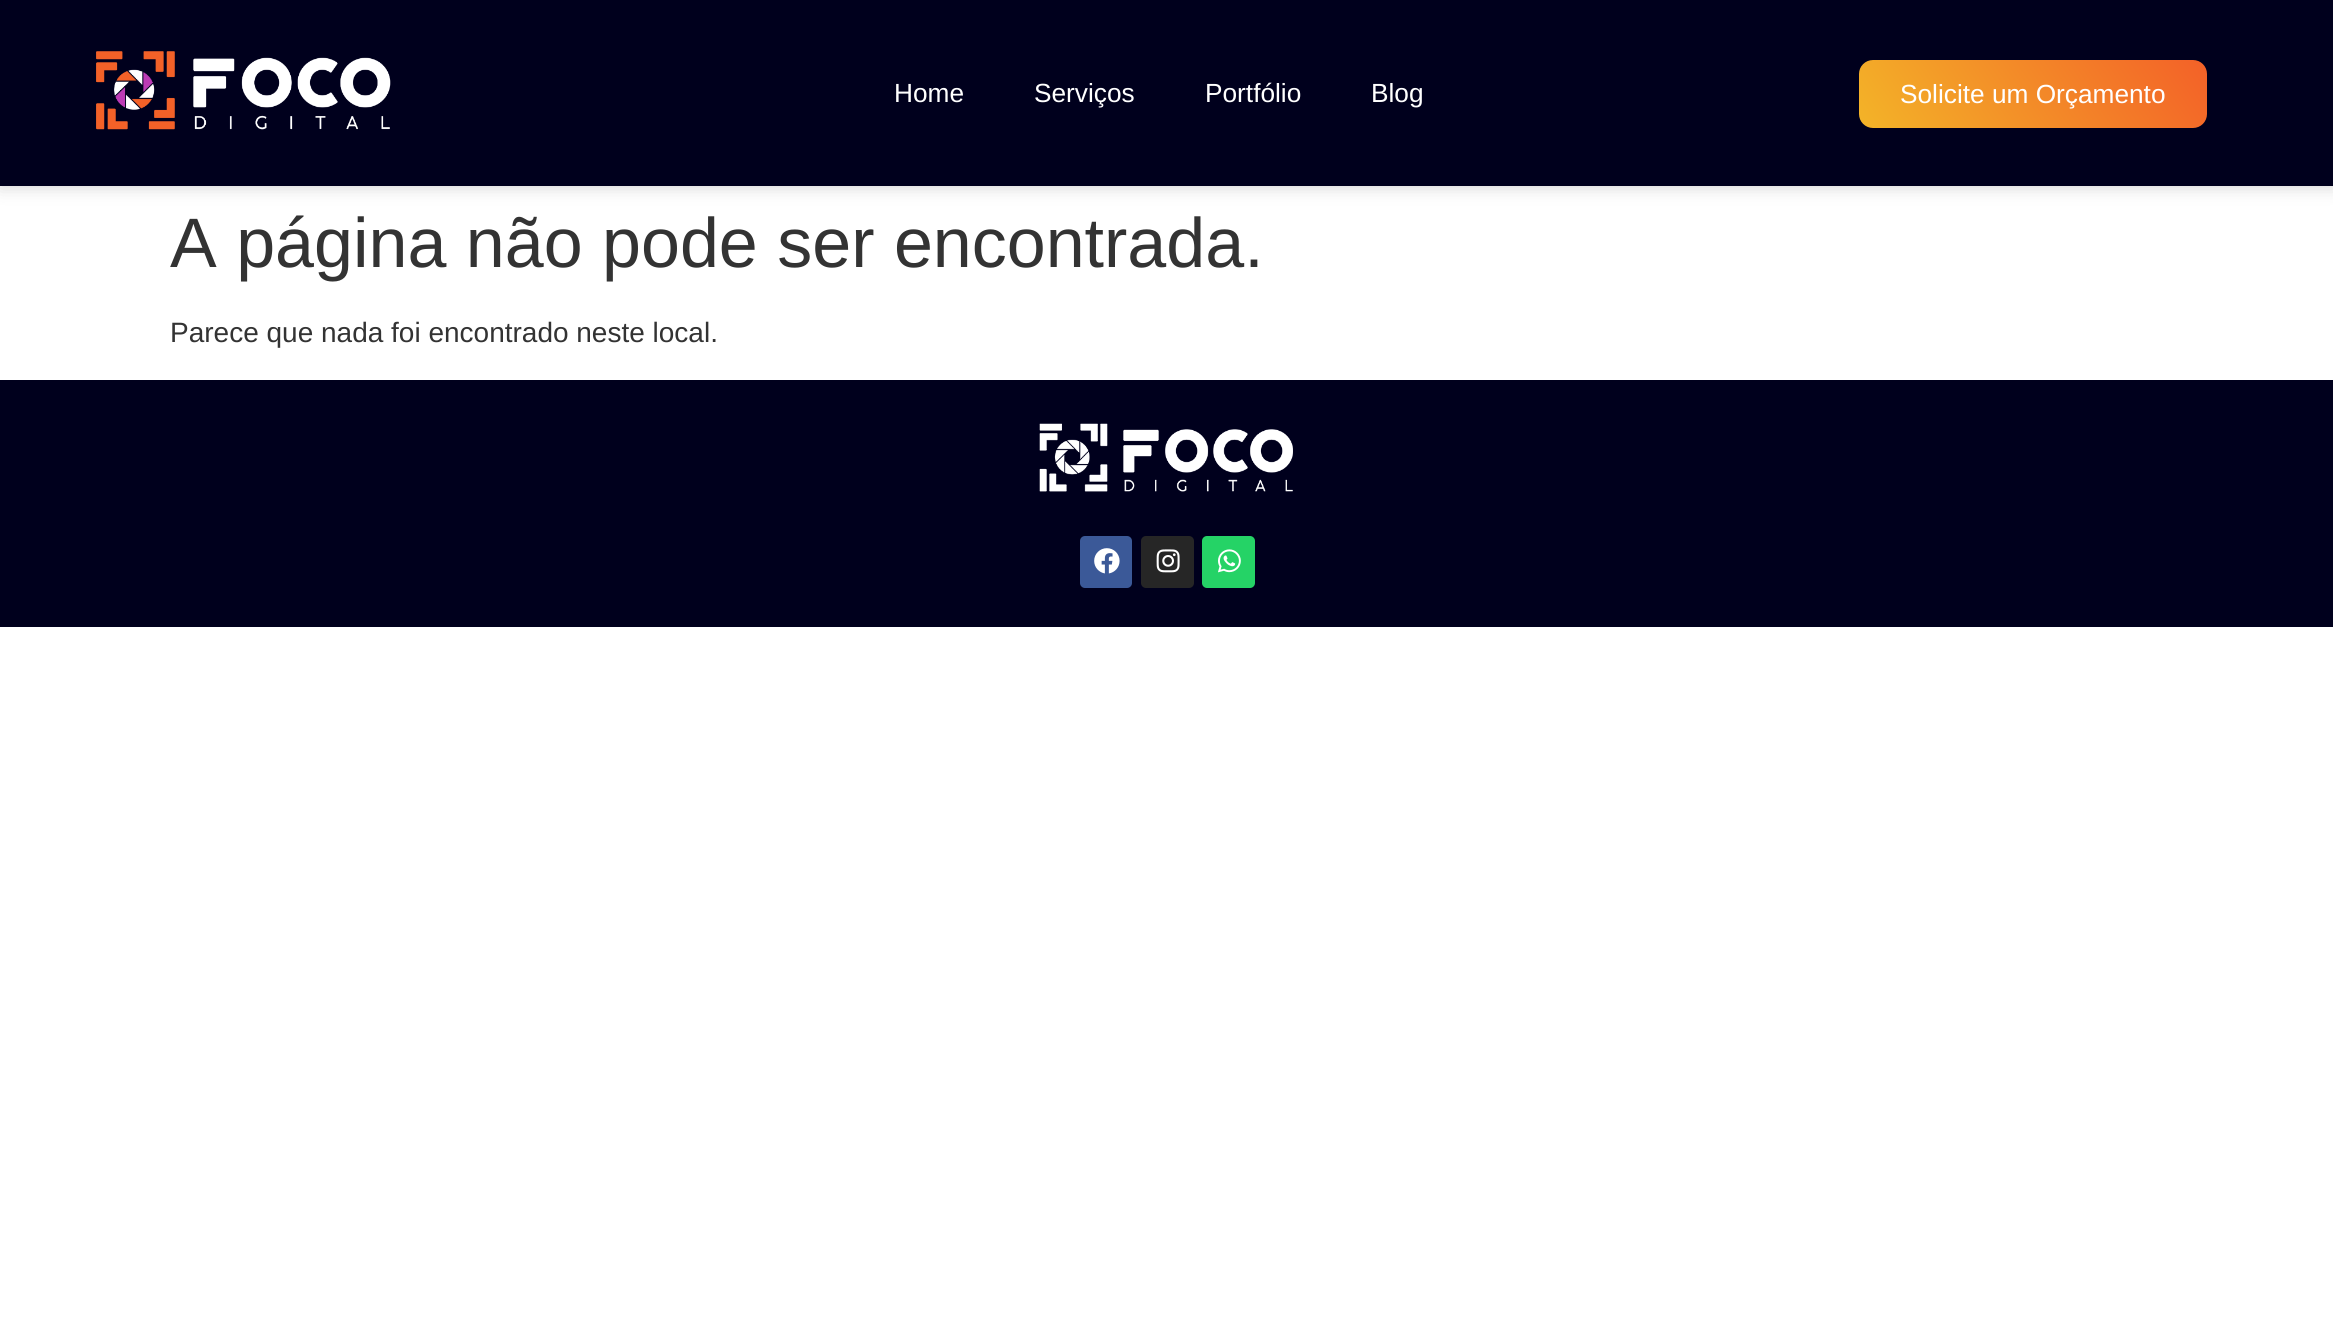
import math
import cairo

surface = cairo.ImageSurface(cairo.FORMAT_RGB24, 2333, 1320)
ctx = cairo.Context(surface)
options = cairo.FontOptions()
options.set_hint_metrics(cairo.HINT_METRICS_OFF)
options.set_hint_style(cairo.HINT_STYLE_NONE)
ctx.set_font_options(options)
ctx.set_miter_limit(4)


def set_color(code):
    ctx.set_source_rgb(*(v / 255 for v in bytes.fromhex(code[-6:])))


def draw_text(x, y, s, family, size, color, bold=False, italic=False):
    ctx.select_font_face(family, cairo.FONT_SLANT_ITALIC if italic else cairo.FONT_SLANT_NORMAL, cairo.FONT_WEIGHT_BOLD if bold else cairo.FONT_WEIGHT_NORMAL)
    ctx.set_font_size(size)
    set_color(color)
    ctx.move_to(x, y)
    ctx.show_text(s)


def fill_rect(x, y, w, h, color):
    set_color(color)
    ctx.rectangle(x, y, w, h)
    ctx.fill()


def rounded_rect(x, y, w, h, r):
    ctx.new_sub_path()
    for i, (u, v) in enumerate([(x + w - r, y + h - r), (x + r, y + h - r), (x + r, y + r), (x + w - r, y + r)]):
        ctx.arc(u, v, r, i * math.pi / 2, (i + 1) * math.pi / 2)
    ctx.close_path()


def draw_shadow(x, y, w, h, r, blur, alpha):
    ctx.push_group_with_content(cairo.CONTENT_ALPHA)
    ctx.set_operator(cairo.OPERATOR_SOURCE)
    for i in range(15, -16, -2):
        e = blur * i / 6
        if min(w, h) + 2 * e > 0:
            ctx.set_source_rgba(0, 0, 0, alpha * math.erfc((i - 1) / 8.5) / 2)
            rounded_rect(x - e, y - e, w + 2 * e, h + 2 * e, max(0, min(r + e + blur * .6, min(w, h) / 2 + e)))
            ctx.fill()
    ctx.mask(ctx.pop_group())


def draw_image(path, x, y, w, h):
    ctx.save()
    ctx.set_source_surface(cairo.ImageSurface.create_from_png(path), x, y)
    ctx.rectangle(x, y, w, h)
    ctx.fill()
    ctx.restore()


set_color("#ffffff")
ctx.paint()
set_color("#000000")
draw_shadow(0, 0, 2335, 186, 0, 9, 0.19)
fill_rect(0, 0, 2333, 186, "#00001d")
draw_image("assets/img1.png", 96, 51, 295, 79)
draw_text(894, 102, "Home", "Liberation Sans", 26.25, "#ffffff")
draw_text(1034, 102, "Serviços", "Liberation Sans", 26.25, "#ffffff")
draw_text(1205, 102, "Portfólio", "Liberation Sans", 26.25, "#ffffff")
draw_text(1371, 102, "Blog", "Liberation Sans", 26.25, "#ffffff")
gradient = cairo.LinearGradient(2168, 2.2, 1897, 185)
gradient.add_color_stop_rgba(0, 0.953, 0.38, 0.157, 1)
gradient.add_color_stop_rgba(1, 0.953, 0.706, 0.157, 1)
ctx.set_source(gradient)
rounded_rect(1859, 60, 348, 68, 14)
ctx.fill()
draw_text(1900, 103, "Solicite um Orçamento", "Liberation Sans", 26.25, "#ffffff")
draw_text(170, 267, "A página não pode ser encontrada.", "Liberation Sans", 70, "#333333")
draw_text(170, 342, "Parece que nada foi encontrado neste local.", "Liberation Sans", 28, "#333333")
fill_rect(0, 380, 2333, 247, "#00001d")
draw_image("assets/img2.png", 1039, 423, 254, 69)
set_color("#3b5998")
rounded_rect(1080, 536, 52, 52, 5)
ctx.fill()
draw_image("assets/img3.png", 1094, 548, 26, 26)
set_color("#262626")
rounded_rect(1141, 536, 53, 52, 5)
ctx.fill()
draw_image("assets/img4.png", 1156, 549, 24, 24)
set_color("#25d366")
rounded_rect(1202, 536, 53, 52, 5)
ctx.fill()
draw_image("assets/img5.png", 1218, 549, 23, 24)
surface.write_to_png("output.png")
